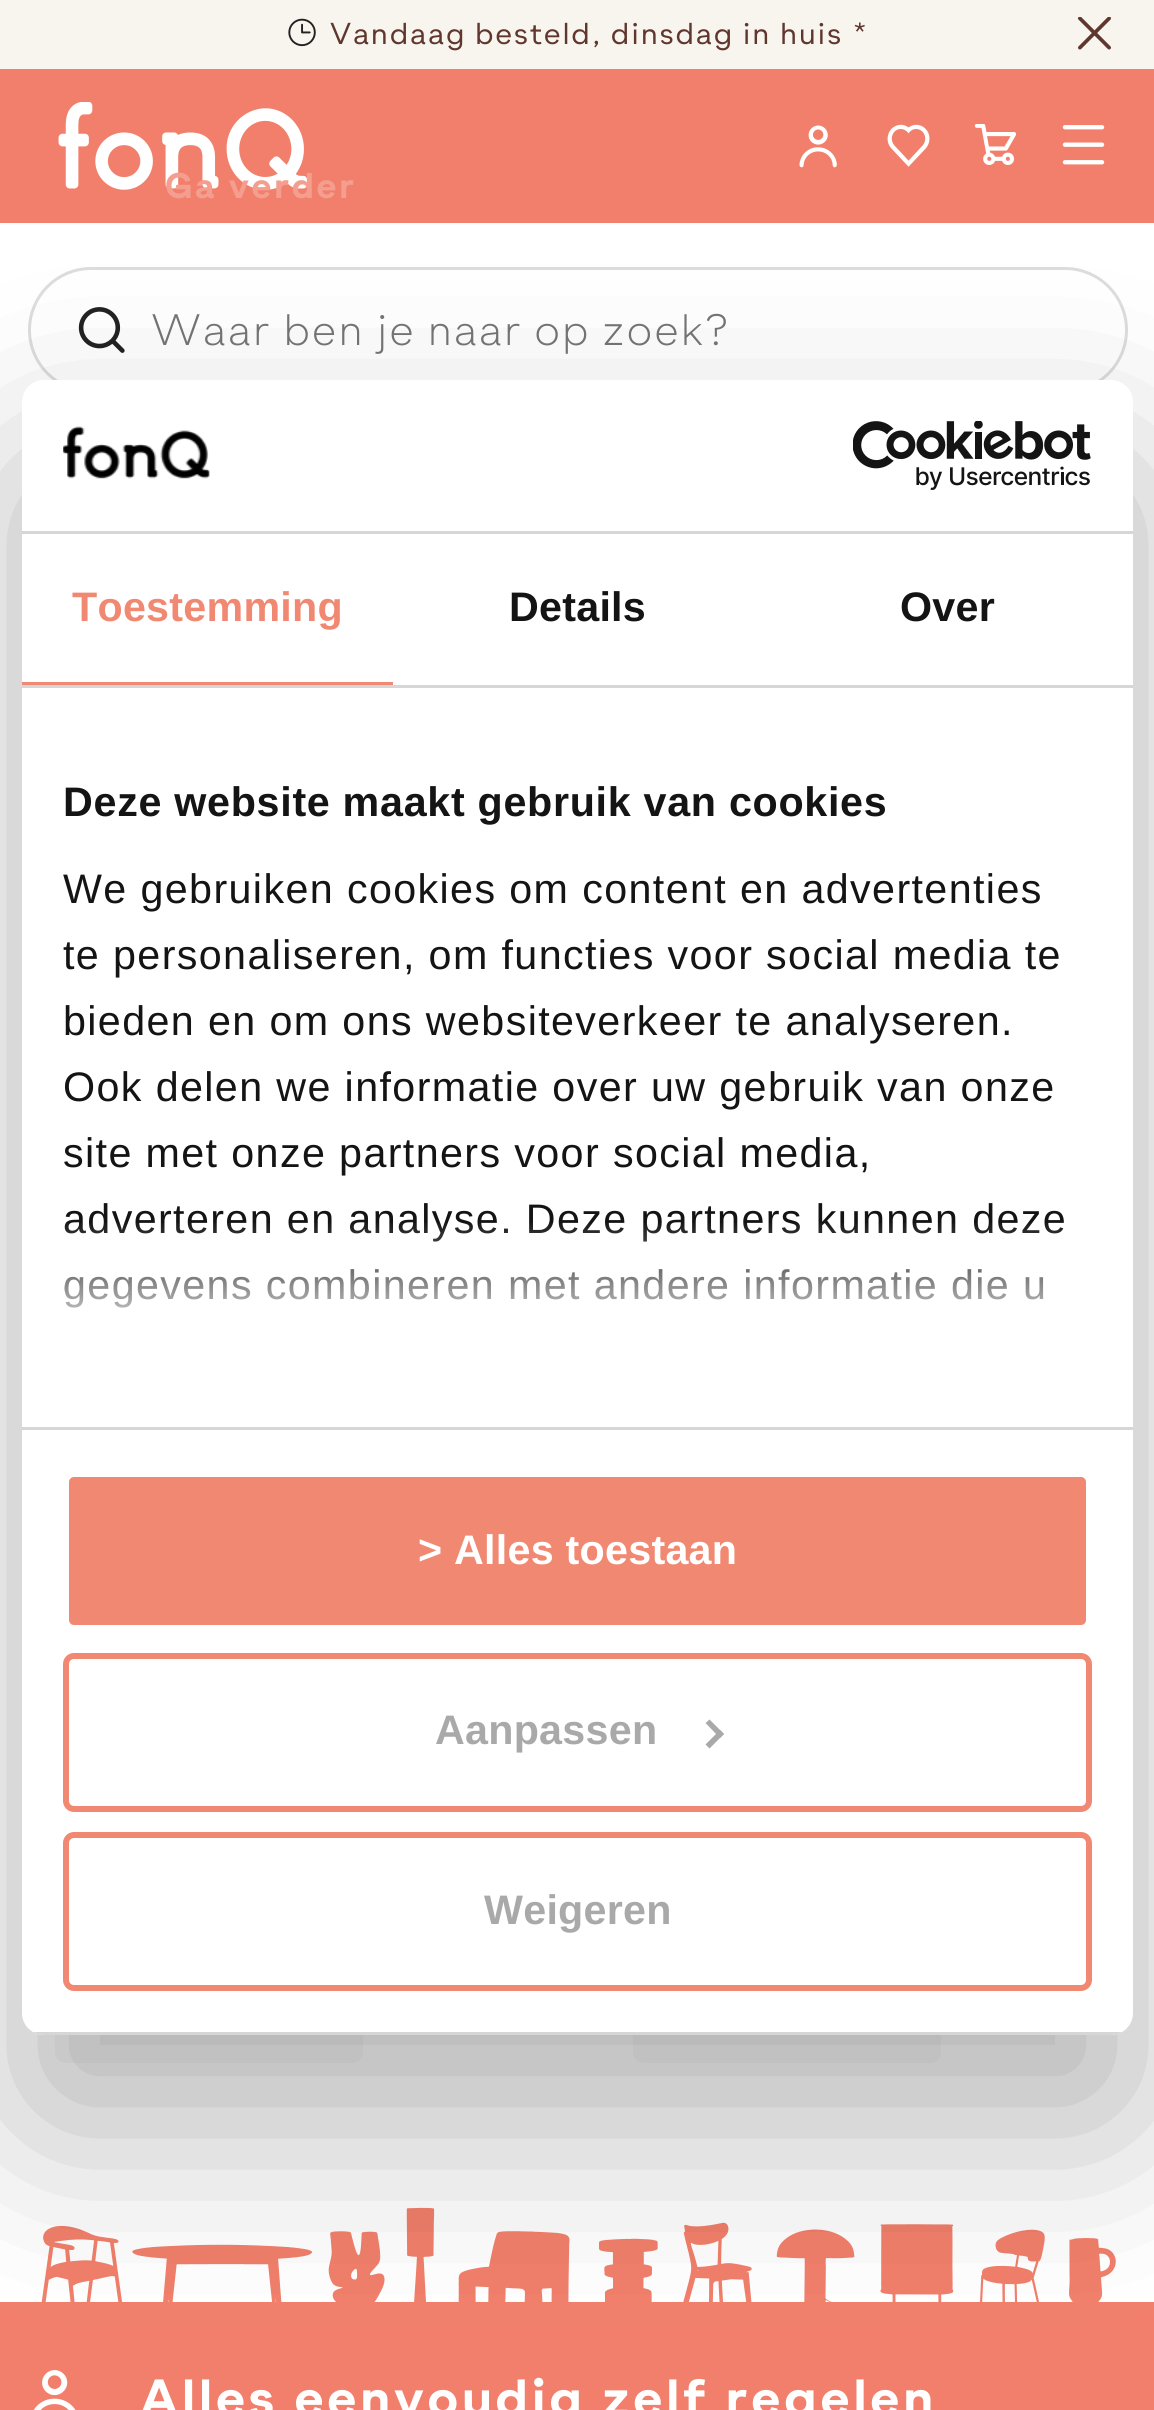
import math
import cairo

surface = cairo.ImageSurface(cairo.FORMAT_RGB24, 1154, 2410)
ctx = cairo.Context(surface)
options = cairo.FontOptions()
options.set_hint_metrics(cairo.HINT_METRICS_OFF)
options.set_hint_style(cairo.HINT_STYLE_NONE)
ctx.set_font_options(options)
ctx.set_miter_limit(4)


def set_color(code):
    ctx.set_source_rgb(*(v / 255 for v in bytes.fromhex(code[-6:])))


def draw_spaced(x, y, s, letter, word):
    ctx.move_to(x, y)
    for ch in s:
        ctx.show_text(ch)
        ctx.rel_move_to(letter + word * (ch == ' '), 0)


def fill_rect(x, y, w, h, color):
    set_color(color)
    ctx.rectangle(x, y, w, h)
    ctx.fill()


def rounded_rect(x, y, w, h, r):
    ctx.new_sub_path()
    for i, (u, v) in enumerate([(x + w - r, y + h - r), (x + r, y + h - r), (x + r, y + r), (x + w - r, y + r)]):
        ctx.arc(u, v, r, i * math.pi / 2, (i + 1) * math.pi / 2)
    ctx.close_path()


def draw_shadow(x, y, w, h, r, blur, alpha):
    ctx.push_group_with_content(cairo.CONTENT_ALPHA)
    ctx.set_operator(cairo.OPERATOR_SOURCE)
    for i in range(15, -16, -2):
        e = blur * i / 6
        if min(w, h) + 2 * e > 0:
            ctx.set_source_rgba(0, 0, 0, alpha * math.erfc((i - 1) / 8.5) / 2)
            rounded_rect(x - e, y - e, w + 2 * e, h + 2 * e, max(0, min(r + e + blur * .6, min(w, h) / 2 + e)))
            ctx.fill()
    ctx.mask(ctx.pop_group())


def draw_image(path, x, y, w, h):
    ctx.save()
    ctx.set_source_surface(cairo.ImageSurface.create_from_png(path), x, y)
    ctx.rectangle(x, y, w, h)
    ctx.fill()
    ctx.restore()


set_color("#ffffff")
ctx.paint()
fill_rect(0, 0, 1154, 69, "#f8f5ef")
draw_image("assets/img1.png", 288, 18, 28, 29)
ctx.select_font_face("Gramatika")
ctx.set_font_size(30.25)
set_color("#60372e")
draw_spaced(330, 44, "Vandaag besteld, dinsdag in huis", 1.8, 0)
draw_spaced(853, 44, "*", 1.8, 0)
draw_image("assets/img2.png", 1078, 17, 33, 33)
fill_rect(0, 69, 1154, 154, "#f17f6b")
draw_image("assets/img3.png", 58, 102, 250, 88)
ctx.select_font_face("Gramatika", cairo.FONT_SLANT_NORMAL, cairo.FONT_WEIGHT_BOLD)
ctx.set_font_size(35.75)
set_color("#f49e8f")
draw_spaced(165, 198, "Ga verder", 2.75, 0)
draw_image("assets/img4.png", 799, 125, 38, 43)
draw_image("assets/img5.png", 887, 124, 43, 43)
draw_image("assets/img6.png", 974, 124, 43, 41)
draw_image("assets/img7.png", 1062, 125, 43, 40)
rounded_rect(29.5, 268.5, 1097, 123, 61.5)
set_color("#dcddde")
ctx.set_line_width(3)
ctx.stroke()
draw_image("assets/img8.png", 78, 307, 47, 46)
ctx.select_font_face("Gramatika Light")
ctx.set_font_size(44)
set_color("#757575")
draw_spaced(151, 345, "Waar ben je naar op zoek?", 1.8, 0)
set_color("#f8f8f8")
rounded_rect(55, 2019, 308, 44, 11)
ctx.fill()
rounded_rect(633, 2019, 308, 44, 11)
ctx.fill()
draw_image("assets/img11.png", 41, 2207, 1075, 95)
fill_rect(0, 2302, 1154, 108, "#f17f6b")
draw_image("assets/img12.png", 33, 2370, 43, 40)
set_color("#000000")
draw_shadow(22, 468, 1111, 1655, 22, 93.5, 0.3)
set_color("#ffffff")
rounded_rect(22, 380, 1111, 1655, 22)
ctx.fill()
fill_rect(22, 531, 1111, 3, "#d6d6d6")
draw_image("assets/img9.png", 63, 426, 147, 53)
draw_image("assets/img10.png", 853, 421, 238, 69)
fill_rect(22, 685, 1111, 3, "#d6d6d6")
fill_rect(22, 682, 371, 3, "#f18972")
ctx.select_font_face("Liberation Sans", cairo.FONT_SLANT_NORMAL, cairo.FONT_WEIGHT_BOLD)
ctx.set_font_size(41.25)
draw_spaced(72, 621, "Toestemming", 0.25, 0)
set_color("#141414")
draw_spaced(509, 621, "Details", 0.25, 0)
draw_spaced(900, 621, "Over", 0.25, 0)
fill_rect(22, 1427, 1111, 3, "#d6d6d6")
set_color("#141414")
draw_spaced(63, 816, "Deze website maakt gebruik van cookies", 0.7, 0)
ctx.select_font_face("Liberation Sans")
draw_spaced(63, 903, "We gebruiken cookies om content en advertenties", 1.38, 0)
draw_spaced(63, 969, "te personaliseren, om functies voor social media te", 1.38, 0)
draw_spaced(63, 1035, "bieden en om ons websiteverkeer te analyseren.", 1.38, 0)
draw_spaced(63, 1101, "Ook delen we informatie over uw gebruik van onze", 1.38, 0)
draw_spaced(63, 1167, "site met onze partners voor social media,", 1.38, 0)
draw_spaced(63, 1233, "adverteren en analyse. Deze partners kunnen deze", 1.38, 0)
draw_spaced(63, 1299, "gegevens combineren met andere informatie die u", 1.38, 0)
gradient = cairo.LinearGradient(560, 1427, 560, 1220)
gradient.add_color_stop_rgba(0, 1, 1, 1, 1)
gradient.add_color_stop_rgba(0.5, 1, 1, 1, 0.8)
gradient.add_color_stop_rgba(1, 1, 1, 1, 0)
ctx.set_source(gradient)
ctx.rectangle(65, 1223, 998, 85)
ctx.fill()
ctx.save()
rounded_rect(22, 380, 1111, 1655, 22)
ctx.clip()
fill_rect(33, 2032, 1089, 3, "#d6d6d6")
ctx.restore()
set_color("#f18972")
rounded_rect(66, 1474, 1023, 154, 8)
ctx.fill_preserve()
set_color("#ffffff")
ctx.set_line_width(6)
ctx.stroke()
ctx.select_font_face("Liberation Sans", cairo.FONT_SLANT_NORMAL, cairo.FONT_WEIGHT_BOLD)
draw_spaced(418, 1564, "> Alles toestaan", 0.25, 0)
rounded_rect(66, 1656, 1023, 153, 8)
set_color("#f18972")
ctx.stroke()
set_color("#a9a9a9")
draw_spaced(435, 1744, "Aanpassen", 0.25, 0)
ctx.new_path()
ctx.move_to(709.5, 1719.5)
ctx.line_to(724, 1734)
ctx.line_to(720, 1738)
ctx.line_to(705.5, 1723)
ctx.close_path()
ctx.fill()
ctx.new_path()
ctx.move_to(720, 1730)
ctx.line_to(724, 1734)
ctx.line_to(709.5, 1748.5)
ctx.line_to(705.5, 1744.5)
ctx.close_path()
ctx.fill()
rounded_rect(66, 1835, 1023, 153, 8)
set_color("#f18972")
ctx.stroke()
set_color("#a9a9a9")
draw_spaced(484, 1924, "Weigeren", 0.25, 0)
ctx.select_font_face("Gramatika", cairo.FONT_SLANT_NORMAL, cairo.FONT_WEIGHT_BOLD)
ctx.set_font_size(52.25)
set_color("#ffffff")
draw_spaced(140, 2416, "Alles eenvoudig zelf regelen", 3.9, 0)
surface.write_to_png("output.png")
